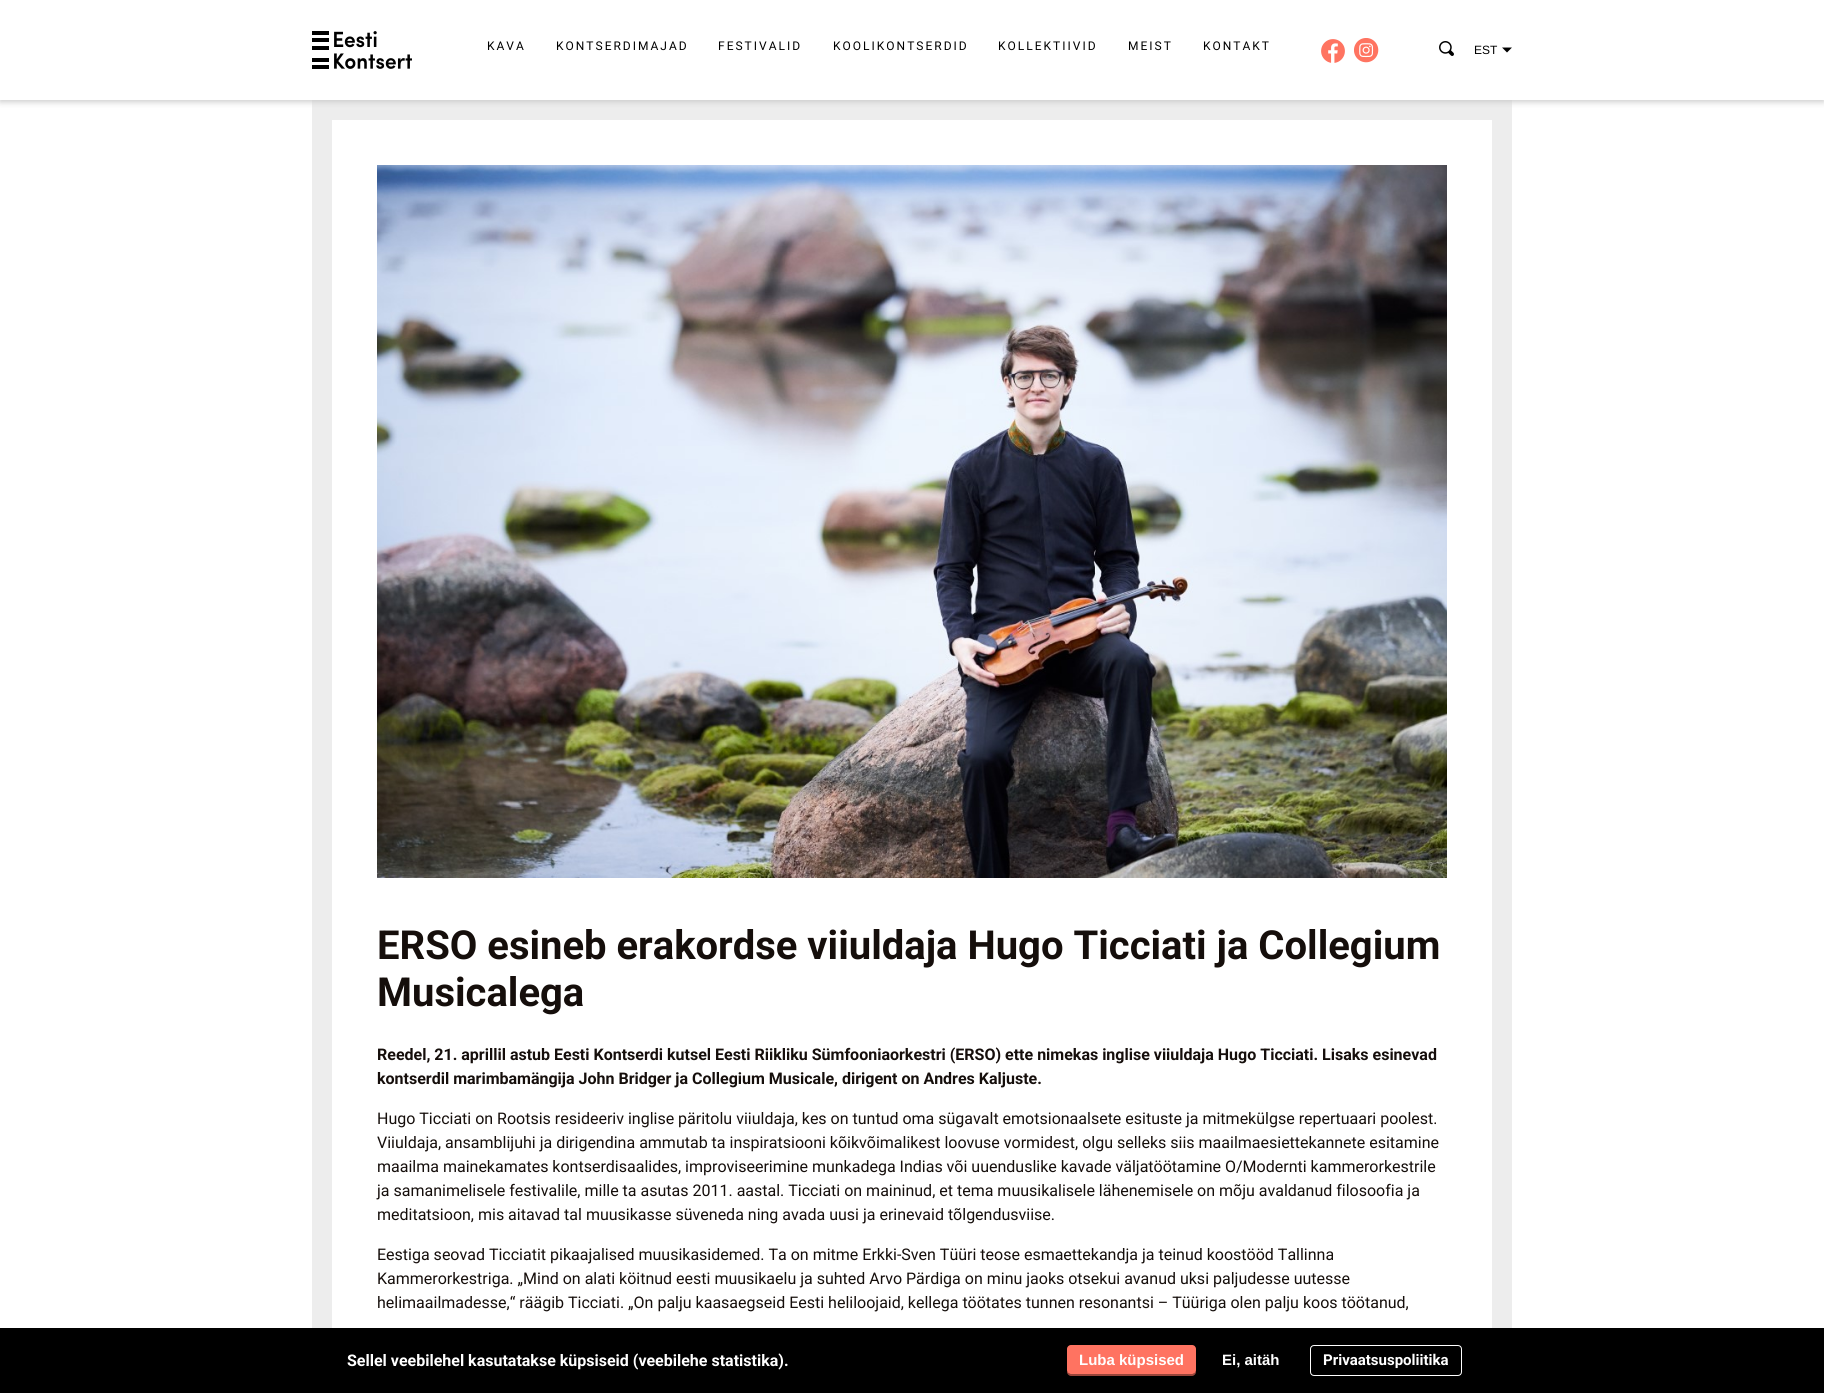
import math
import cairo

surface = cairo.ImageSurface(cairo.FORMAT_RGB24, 1824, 1393)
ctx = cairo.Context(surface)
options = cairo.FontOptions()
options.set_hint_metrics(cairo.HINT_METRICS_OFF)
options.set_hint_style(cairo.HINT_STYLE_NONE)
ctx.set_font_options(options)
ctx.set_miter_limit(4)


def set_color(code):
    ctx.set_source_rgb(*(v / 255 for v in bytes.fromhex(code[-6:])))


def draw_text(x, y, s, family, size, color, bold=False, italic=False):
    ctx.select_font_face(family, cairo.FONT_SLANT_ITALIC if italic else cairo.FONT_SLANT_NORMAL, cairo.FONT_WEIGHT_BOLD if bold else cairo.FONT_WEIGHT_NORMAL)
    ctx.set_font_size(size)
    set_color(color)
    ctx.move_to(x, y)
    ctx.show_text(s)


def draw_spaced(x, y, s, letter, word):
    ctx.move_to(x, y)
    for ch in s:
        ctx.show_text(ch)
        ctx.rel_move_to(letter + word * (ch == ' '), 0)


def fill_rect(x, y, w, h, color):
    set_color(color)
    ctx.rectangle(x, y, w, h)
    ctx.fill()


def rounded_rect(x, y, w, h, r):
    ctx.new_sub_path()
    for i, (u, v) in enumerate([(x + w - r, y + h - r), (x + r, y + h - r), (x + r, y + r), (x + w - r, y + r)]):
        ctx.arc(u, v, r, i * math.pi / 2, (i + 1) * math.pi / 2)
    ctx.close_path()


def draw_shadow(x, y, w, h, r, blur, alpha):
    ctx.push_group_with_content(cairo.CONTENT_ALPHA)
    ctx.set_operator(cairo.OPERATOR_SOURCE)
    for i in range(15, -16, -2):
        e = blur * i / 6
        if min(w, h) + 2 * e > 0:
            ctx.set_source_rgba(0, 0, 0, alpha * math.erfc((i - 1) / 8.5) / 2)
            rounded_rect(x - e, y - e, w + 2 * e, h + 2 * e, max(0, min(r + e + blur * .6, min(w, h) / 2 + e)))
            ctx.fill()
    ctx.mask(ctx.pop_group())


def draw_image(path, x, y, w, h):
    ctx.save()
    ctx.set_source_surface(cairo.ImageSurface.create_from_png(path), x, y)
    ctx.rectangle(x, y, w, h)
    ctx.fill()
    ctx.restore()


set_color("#ffffff")
ctx.paint()
fill_rect(312, 100, 1200, 1228, "#ededed")
ctx.save()
ctx.rectangle(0, 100, 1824, 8)
ctx.clip()
set_color("#cccccc")
draw_shadow(0, 2, 1824, 100, 0, 3, 1)
ctx.restore()
draw_image("assets/img1.png", 312, 31, 100, 38)
ctx.select_font_face("Roboto")
ctx.set_font_size(12)
set_color("#000000")
draw_spaced(487, 50, "KAVA", 2, 0)
draw_spaced(556, 50, "KONTSERDIMAJAD", 2, 0)
draw_spaced(718, 50, "FESTIVALID", 2, 0)
draw_spaced(833, 50, "KOOLIKONTSERDID", 2, 0)
draw_spaced(998, 50, "KOLLEKTIIVID", 2, 0)
draw_spaced(1128, 50, "MEIST", 2, 0)
draw_spaced(1203, 50, "KONTAKT", 2, 0)
draw_image("assets/img2.png", 1321, 39, 24, 24)
draw_image("assets/img3.png", 1354, 38, 25, 25)
draw_image("assets/img4.png", 1439, 41, 15, 15)
draw_text(1474, 54, "EST", "Liberation Sans", 12, "#000000")
ctx.new_path()
ctx.move_to(1502, 47.5)
ctx.line_to(1507, 52.5)
ctx.line_to(1512, 47.5)
ctx.close_path()
ctx.fill()
fill_rect(332, 120, 1160, 1208, "#ffffff")
draw_image("assets/img5.png", 377, 165, 1070, 713)
draw_text(377, 959, "ERSO esineb erakordse viiuldaja Hugo Ticciati ja Collegium", "Roboto", 40, "#150e0b", bold=True)
draw_text(377, 1006, "Musicalega", "Roboto", 40, "#150e0b", bold=True)
draw_text(377, 1060, "Reedel, 21. aprillil astub Eesti Kontserdi kutsel Eesti Riikliku Sümfooniaorkestri (ERSO) ette nimekas inglise viiuldaja Hugo Ticciati. Lisaks esinevad", "Roboto", 16, "#150e0b", bold=True)
draw_text(377, 1084, "kontserdil marimbamängija John Bridger ja Collegium Musicale, dirigent on Andres Kaljuste.", "Roboto", 16, "#150e0b", bold=True)
draw_text(377, 1124, "Hugo Ticciati on Rootsis resideeriv inglise päritolu viiuldaja, kes on tuntud oma sügavalt emotsionaalsete esituste ja mitmekülgse repertuaari poolest.", "Roboto", 16, "#150e0b")
draw_text(377, 1148, "Viiuldaja, ansamblijuhi ja dirigendina ammutab ta inspiratsiooni kõikvõimalikest loovuse vormidest, olgu selleks siis maailmaesiettekannete esitamine", "Roboto", 16, "#150e0b")
draw_text(377, 1172, "maailma mainekamates kontserdisaalides, improviseerimine munkadega Indias või uuenduslike kavade väljatöötamine O/Modernti kammerorkestrile", "Roboto", 16, "#150e0b")
draw_text(377, 1196, "ja samanimelisele festivalile, mille ta asutas 2011. aastal. Ticciati on maininud, et tema muusikalisele lähenemisele on mõju avaldanud filosoofia ja", "Roboto", 16, "#150e0b")
draw_text(377, 1220, "meditatsioon, mis aitavad tal muusikasse süveneda ning avada uusi ja erinevaid tõlgendusviise.", "Roboto", 16, "#150e0b")
draw_text(377, 1260, "Eestiga seovad Ticciatit pikaajalised muusikasidemed. Ta on mitme Erkki-Sven Tüüri teose esmaettekandja ja teinud koostööd Tallinna", "Roboto", 16, "#150e0b")
draw_text(377, 1284, "Kammerorkestriga. „Mind on alati köitnud eesti muusikaelu ja suhted Arvo Pärdiga on minu jaoks otsekui avanud uksi paljudesse uutesse", "Roboto", 16, "#150e0b")
draw_text(377, 1308, "helimaailmadesse,“ räägib Ticciati. „On palju kaasaegseid Eesti heliloojaid, kellega töötates tunnen resonantsi – Tüüriga olen palju koos töötanud,", "Roboto", 16, "#150e0b")
fill_rect(0, 1328, 1824, 65, "#000000")
draw_text(347, 1366, "Sellel veebilehel kasutatakse küpsiseid (veebilehe statistika).", "Roboto", 16, "#ffffff", bold=True)
set_color("#99453a")
ctx.new_path()
ctx.move_to(1067, 1370)
ctx.line_to(1067, 1372)
ctx.curve_to(1067, 1374, 1069, 1376, 1071, 1376)
ctx.line_to(1192, 1376)
ctx.curve_to(1194, 1376, 1196, 1374, 1196, 1372)
ctx.line_to(1196, 1370)
ctx.curve_to(1196, 1372, 1194, 1374, 1192, 1374)
ctx.line_to(1071, 1374)
ctx.curve_to(1069, 1374, 1067, 1372, 1067, 1370)
ctx.close_path()
ctx.fill()
set_color("#ff7361")
rounded_rect(1067, 1345, 129, 29, 4)
ctx.fill()
draw_text(1079, 1365, "Luba küpsised", "Liberation Sans", 15, "#ffffff", bold=True)
draw_text(1222, 1365, "Ei, aitäh", "Liberation Sans", 15, "#ffffff", bold=True)
rounded_rect(1310.5, 1345.5, 151, 30, 3.5)
ctx.set_line_width(1)
ctx.stroke()
draw_text(1323, 1365, "Privaatsuspoliitika", "Roboto", 15, "#ffffff", bold=True)
surface.write_to_png("output.png")
